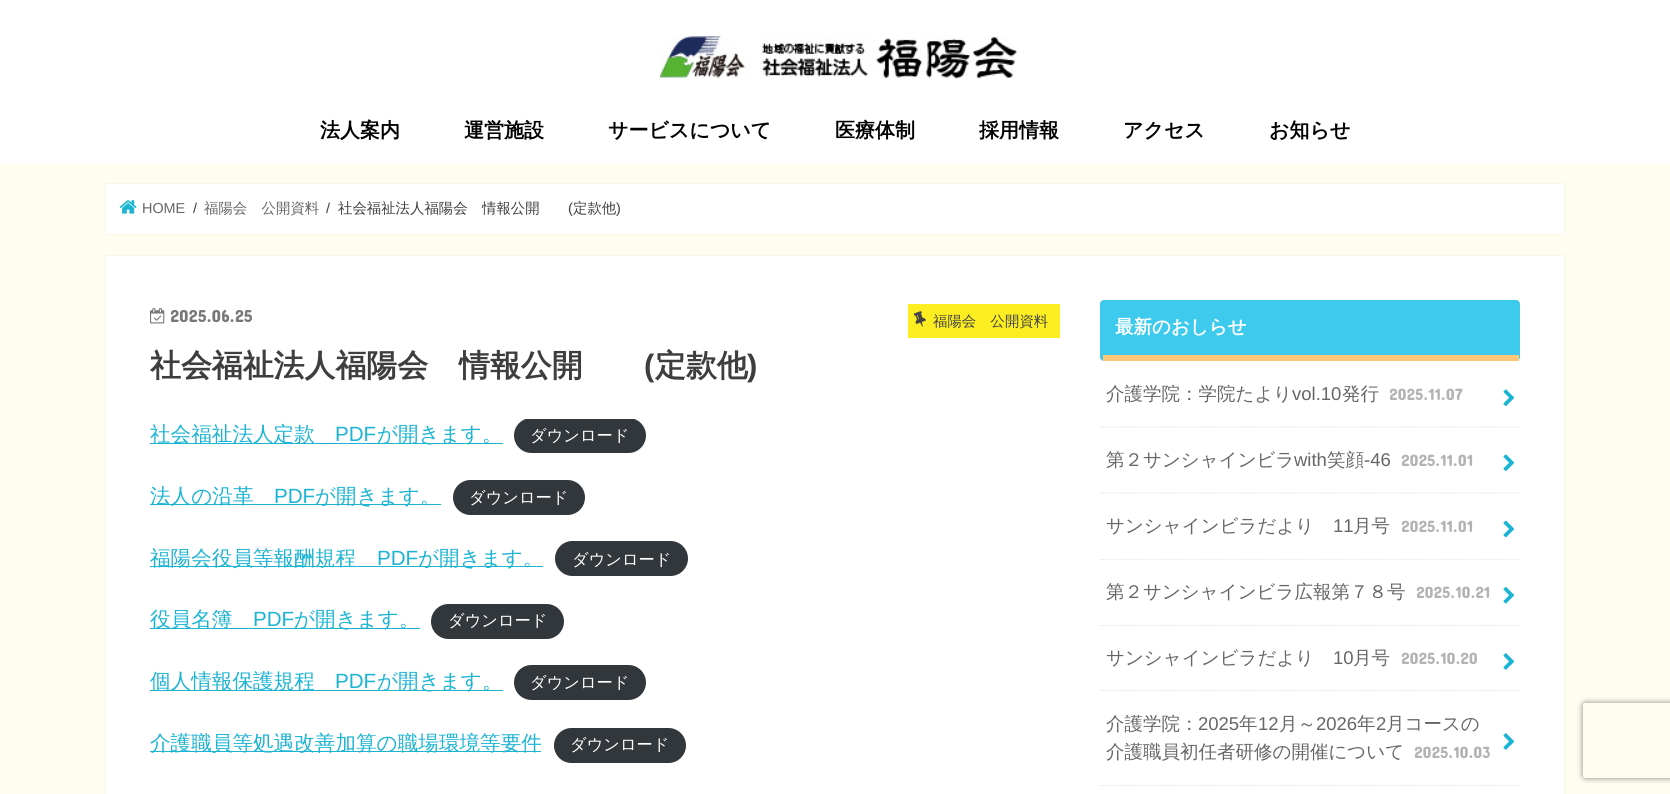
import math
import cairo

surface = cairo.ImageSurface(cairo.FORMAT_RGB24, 1670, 794)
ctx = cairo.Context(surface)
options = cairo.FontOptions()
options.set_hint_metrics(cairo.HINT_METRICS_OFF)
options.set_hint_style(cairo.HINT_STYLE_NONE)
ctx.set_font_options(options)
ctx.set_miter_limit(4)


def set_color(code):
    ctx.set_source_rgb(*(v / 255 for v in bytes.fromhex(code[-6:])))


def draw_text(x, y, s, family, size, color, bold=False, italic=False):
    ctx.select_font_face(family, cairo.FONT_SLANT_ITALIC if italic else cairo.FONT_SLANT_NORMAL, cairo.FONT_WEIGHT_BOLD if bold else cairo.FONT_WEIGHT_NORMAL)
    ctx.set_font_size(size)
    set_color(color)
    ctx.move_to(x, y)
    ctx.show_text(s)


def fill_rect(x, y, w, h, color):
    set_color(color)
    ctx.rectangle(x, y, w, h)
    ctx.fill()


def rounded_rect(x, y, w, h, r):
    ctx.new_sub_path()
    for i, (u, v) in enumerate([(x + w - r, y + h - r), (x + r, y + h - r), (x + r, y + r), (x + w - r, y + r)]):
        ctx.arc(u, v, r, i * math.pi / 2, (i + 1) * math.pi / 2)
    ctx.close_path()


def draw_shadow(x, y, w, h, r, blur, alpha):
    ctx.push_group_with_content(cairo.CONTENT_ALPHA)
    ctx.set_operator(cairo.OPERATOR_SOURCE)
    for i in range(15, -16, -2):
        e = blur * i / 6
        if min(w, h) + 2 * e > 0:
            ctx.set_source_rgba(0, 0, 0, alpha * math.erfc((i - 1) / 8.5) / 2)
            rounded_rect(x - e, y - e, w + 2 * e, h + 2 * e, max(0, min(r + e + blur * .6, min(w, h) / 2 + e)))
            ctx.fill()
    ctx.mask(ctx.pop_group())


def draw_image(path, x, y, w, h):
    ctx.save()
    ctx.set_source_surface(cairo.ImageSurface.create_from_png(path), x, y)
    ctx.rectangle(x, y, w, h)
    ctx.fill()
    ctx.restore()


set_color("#fffdf0")
ctx.paint()
fill_rect(0, 0, 1670, 163, "#ffffff")
draw_image("assets/img1.png", 659, 36, 358, 43)
draw_text(320, 137, "法人案内", "WenQuanYi Zen Hei", 20, "#000000", bold=True)
draw_text(464, 137, "運営施設", "WenQuanYi Zen Hei", 20, "#000000", bold=True)
draw_text(608, 137, "サービスについて", "WenQuanYi Zen Hei", 20, "#000000", bold=True)
draw_text(835, 137, "医療体制", "WenQuanYi Zen Hei", 20, "#000000", bold=True)
draw_text(979, 137, "採用情報", "WenQuanYi Zen Hei", 20, "#000000", bold=True)
draw_text(1123, 137, "アクセス", "WenQuanYi Zen Hei", 20, "#000000", bold=True)
draw_text(1269, 137, "お知らせ", "WenQuanYi Zen Hei", 20, "#000000", bold=True)
set_color("#dddddd")
draw_shadow(106, 184, 1458, 50, 0, 0.5, 1)
fill_rect(106, 184, 1458, 50, "#ffffff")
draw_image("assets/img2.png", 119, 200, 18, 14)
draw_text(142, 213, "HOME", "Liberation Sans", 14.4, "#666666")
draw_text(193, 213, "/", "Liberation Sans", 14.4, "#3e3e3e")
draw_text(204, 213, "福陽会　公開資料", "WenQuanYi Zen Hei Medium", 14.4, "#666666")
draw_text(326, 213, "/", "Liberation Sans", 14.4, "#3e3e3e")
draw_text(338, 213, "社会福祉法人福陽会　情報公開", "WenQuanYi Zen Hei Medium", 14.4, "#3e3e3e")
draw_text(568, 213, "(", "Liberation Sans", 14.4, "#3e3e3e")
draw_text(573, 213, "定款他", "WenQuanYi Zen Hei Medium", 14.4, "#3e3e3e")
draw_text(616, 213, ")", "Liberation Sans", 14.4, "#3e3e3e")
set_color("#dddddd")
draw_shadow(106, 256, 1458, 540, 0, 0.5, 1)
fill_rect(106, 256, 1458, 538, "#ffffff")
draw_image("assets/img3.png", 150, 308, 15, 16)
draw_text(170, 322, "2025.06.25", "Concert One", 17.5, "#787878")
fill_rect(908, 304, 152, 34, "#fcee21")
draw_image("assets/img4.png", 913, 311, 13, 16)
draw_text(933, 326, "福陽会　公開資料", "WenQuanYi Zen Hei Medium", 14.4, "#444444")
draw_text(150, 376, "社会福祉法人福陽会　情報公開", "WenQuanYi Zen Hei", 30.9, "#3e3e3e", bold=True)
draw_text(644, 376, "(", "Liberation Sans", 30.9, "#3e3e3e", bold=True)
draw_text(655, 376, "定款他", "WenQuanYi Zen Hei", 30.9, "#3e3e3e", bold=True)
draw_text(747, 376, ")", "Liberation Sans", 30.9, "#3e3e3e", bold=True)
fill_rect(150, 443, 353, 1, "#1bb4d3")
draw_text(150, 441, "社会福祉法人定款", "WenQuanYi Zen Hei Medium", 20.6, "#1bb4d3")
draw_text(335, 441, "PDF", "Liberation Sans", 20.6, "#1bb4d3")
draw_text(377, 441, "が開きます。", "WenQuanYi Zen Hei Medium", 20.6, "#1bb4d3")
ctx.save()
ctx.rectangle(150, 419, 910, 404)
ctx.clip()
set_color("#32373c")
rounded_rect(514, 418, 132, 35, 17.5)
ctx.fill()
ctx.restore()
draw_text(530, 441, "ダウンロード", "WenQuanYi Zen Hei Medium", 16.25, "#ffffff")
fill_rect(150, 504, 291, 1, "#1bb4d3")
draw_text(150, 503, "法人の沿革", "WenQuanYi Zen Hei Medium", 20.6, "#1bb4d3")
draw_text(274, 503, "PDF", "Liberation Sans", 20.6, "#1bb4d3")
draw_text(315, 503, "が開きます。", "WenQuanYi Zen Hei Medium", 20.6, "#1bb4d3")
set_color("#32373c")
rounded_rect(453, 480, 132, 35, 17.5)
ctx.fill()
draw_text(469, 503, "ダウンロード", "WenQuanYi Zen Hei Medium", 16.25, "#ffffff")
fill_rect(150, 566, 393, 1, "#1bb4d3")
draw_text(150, 565, "福陽会役員等報酬規程", "WenQuanYi Zen Hei Medium", 20.6, "#1bb4d3")
draw_text(377, 565, "PDF", "Liberation Sans", 20.6, "#1bb4d3")
draw_text(418, 565, "が開きます。", "WenQuanYi Zen Hei Medium", 20.6, "#1bb4d3")
set_color("#32373c")
rounded_rect(555, 541, 133, 35, 17.5)
ctx.fill()
draw_text(572, 565, "ダウンロード", "WenQuanYi Zen Hei Medium", 16.25, "#ffffff")
fill_rect(150, 628, 270, 1, "#1bb4d3")
draw_text(150, 626, "役員名簿", "WenQuanYi Zen Hei Medium", 20.6, "#1bb4d3")
draw_text(253, 626, "PDF", "Liberation Sans", 20.6, "#1bb4d3")
draw_text(294, 626, "が開きます。", "WenQuanYi Zen Hei Medium", 20.6, "#1bb4d3")
set_color("#32373c")
rounded_rect(431, 604, 133, 35, 17.5)
ctx.fill()
draw_text(448, 626, "ダウンロード", "WenQuanYi Zen Hei Medium", 16.25, "#ffffff")
fill_rect(150, 690, 353, 1, "#1bb4d3")
draw_text(150, 688, "個人情報保護規程", "WenQuanYi Zen Hei Medium", 20.6, "#1bb4d3")
draw_text(335, 688, "PDF", "Liberation Sans", 20.6, "#1bb4d3")
draw_text(377, 688, "が開きます。", "WenQuanYi Zen Hei Medium", 20.6, "#1bb4d3")
set_color("#32373c")
rounded_rect(514, 665, 132, 35, 17.5)
ctx.fill()
draw_text(530, 688, "ダウンロード", "WenQuanYi Zen Hei Medium", 16.25, "#ffffff")
fill_rect(150, 751, 391, 1, "#1bb4d3")
draw_text(150, 750, "介護職員等処遇改善加算の職場環境等要件", "WenQuanYi Zen Hei Medium", 20.6, "#1bb4d3")
set_color("#32373c")
rounded_rect(554, 728, 132, 35, 17.5)
ctx.fill()
draw_text(570, 750, "ダウンロード", "WenQuanYi Zen Hei Medium", 16.25, "#ffffff")
set_color("#3dcaed")
rounded_rect(1100, 300, 420, 61, 4)
ctx.fill()
fill_rect(1103, 355, 416, 6, "#ffc778")
draw_text(1115, 333, "最新のおしらせ", "WenQuanYi Zen Hei", 18.5, "#ffffff", bold=True)
ctx.new_path()
ctx.move_to(1100, 427)
ctx.line_to(1520, 427)
set_color("#e5e5e5")
ctx.set_line_width(1.2)
ctx.set_dash([1.25, 1.25])
ctx.stroke()
draw_text(1106, 400, "介護学院：学院たより", "WenQuanYi Zen Hei Medium", 18.5, "#666666")
draw_text(1292, 400, "vol.10", "Liberation Sans", 18.5, "#666666")
draw_text(1342, 400, "発行", "WenQuanYi Zen Hei Medium", 18.5, "#666666")
draw_text(1389, 400, "2025.11.07", "Concert One", 16.5, "#b3b3b3")
draw_image("assets/img5.png", 1503, 389, 12, 17)
ctx.new_path()
ctx.move_to(1100, 493)
ctx.line_to(1520, 493)
set_color("#e5e5e5")
ctx.stroke()
draw_text(1106, 466, "第２サンシャインビラ", "WenQuanYi Zen Hei Medium", 18.5, "#666666")
draw_text(1294, 466, "with", "Liberation Sans", 18.5, "#666666")
draw_text(1327, 466, "笑顔", "WenQuanYi Zen Hei Medium", 18.5, "#666666")
draw_text(1364, 466, "-46", "Liberation Sans", 18.5, "#666666")
draw_text(1401, 466, "2025.11.01", "Concert One", 16.5, "#b3b3b3")
draw_image("assets/img5.png", 1503, 454, 12, 17)
ctx.new_path()
ctx.move_to(1100, 559.5)
ctx.line_to(1520, 559.5)
set_color("#e5e5e5")
ctx.stroke()
draw_text(1106, 532, "サンシャインビラだより", "WenQuanYi Zen Hei Medium", 18.5, "#666666")
draw_text(1333, 532, "11", "Liberation Sans", 18.5, "#666666")
draw_text(1353, 532, "月号", "WenQuanYi Zen Hei Medium", 18.5, "#666666")
draw_text(1401, 532, "2025.11.01", "Concert One", 16.5, "#b3b3b3")
draw_image("assets/img6.png", 1503, 520, 12, 18)
ctx.new_path()
ctx.move_to(1100, 625.5)
ctx.line_to(1520, 625.5)
set_color("#e5e5e5")
ctx.stroke()
draw_text(1106, 598, "第２サンシャインビラ広報第７８号", "WenQuanYi Zen Hei Medium", 18.5, "#666666")
draw_text(1416, 598, "2025.10.21", "Concert One", 16.5, "#b3b3b3")
draw_image("assets/img7.png", 1503, 586, 12, 18)
ctx.new_path()
ctx.move_to(1100, 690.5)
ctx.line_to(1520, 690.5)
set_color("#e5e5e5")
ctx.stroke()
draw_text(1106, 664, "サンシャインビラだより", "WenQuanYi Zen Hei Medium", 18.5, "#666666")
draw_text(1333, 664, "10", "Liberation Sans", 18.5, "#666666")
draw_text(1353, 664, "月号", "WenQuanYi Zen Hei Medium", 18.5, "#666666")
draw_text(1401, 664, "2025.10.20", "Concert One", 16.5, "#b3b3b3")
draw_image("assets/img8.png", 1503, 653, 12, 17)
ctx.new_path()
ctx.move_to(1100, 785.5)
ctx.line_to(1520, 785.5)
set_color("#e5e5e5")
ctx.stroke()
draw_text(1106, 730, "介護学院：", "WenQuanYi Zen Hei Medium", 18.5, "#666666")
draw_text(1198, 730, "2025", "Liberation Sans", 18.5, "#666666")
draw_text(1239, 730, "年", "WenQuanYi Zen Hei Medium", 18.5, "#666666")
draw_text(1258, 730, "12", "Liberation Sans", 18.5, "#666666")
draw_text(1279, 730, "月～", "WenQuanYi Zen Hei Medium", 18.5, "#666666")
draw_text(1316, 730, "2026", "Liberation Sans", 18.5, "#666666")
draw_text(1357, 730, "年", "WenQuanYi Zen Hei Medium", 18.5, "#666666")
draw_text(1376, 730, "2", "Liberation Sans", 18.5, "#666666")
draw_text(1386, 730, "月コースの", "WenQuanYi Zen Hei Medium", 18.5, "#666666")
draw_text(1106, 758, "介護職員初任者研修の開催について", "WenQuanYi Zen Hei Medium", 18.5, "#666666")
draw_text(1414, 758, "2025.10.03", "Concert One", 16.5, "#b3b3b3")
draw_image("assets/img8.png", 1503, 733, 12, 17)
ctx.save()
ctx.set_fill_rule(cairo.FILL_RULE_EVEN_ODD)
ctx.new_path()
ctx.move_to(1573, 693)
ctx.line_to(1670, 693)
ctx.line_to(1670, 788)
ctx.line_to(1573, 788)
ctx.close_path()
ctx.move_to(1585.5, 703)
ctx.line_to(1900.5, 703)
ctx.curve_to(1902, 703, 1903, 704, 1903, 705.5)
ctx.line_to(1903, 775.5)
ctx.curve_to(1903, 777, 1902, 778, 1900.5, 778)
ctx.line_to(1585.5, 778)
ctx.curve_to(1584, 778, 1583, 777, 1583, 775.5)
ctx.line_to(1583, 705.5)
ctx.curve_to(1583, 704, 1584, 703, 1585.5, 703)
ctx.close_path()
ctx.clip()
set_color("#808080")
draw_shadow(1583, 703, 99, 75, 2.5, 3, 1)
ctx.restore()
surface.write_to_png("output.png")
